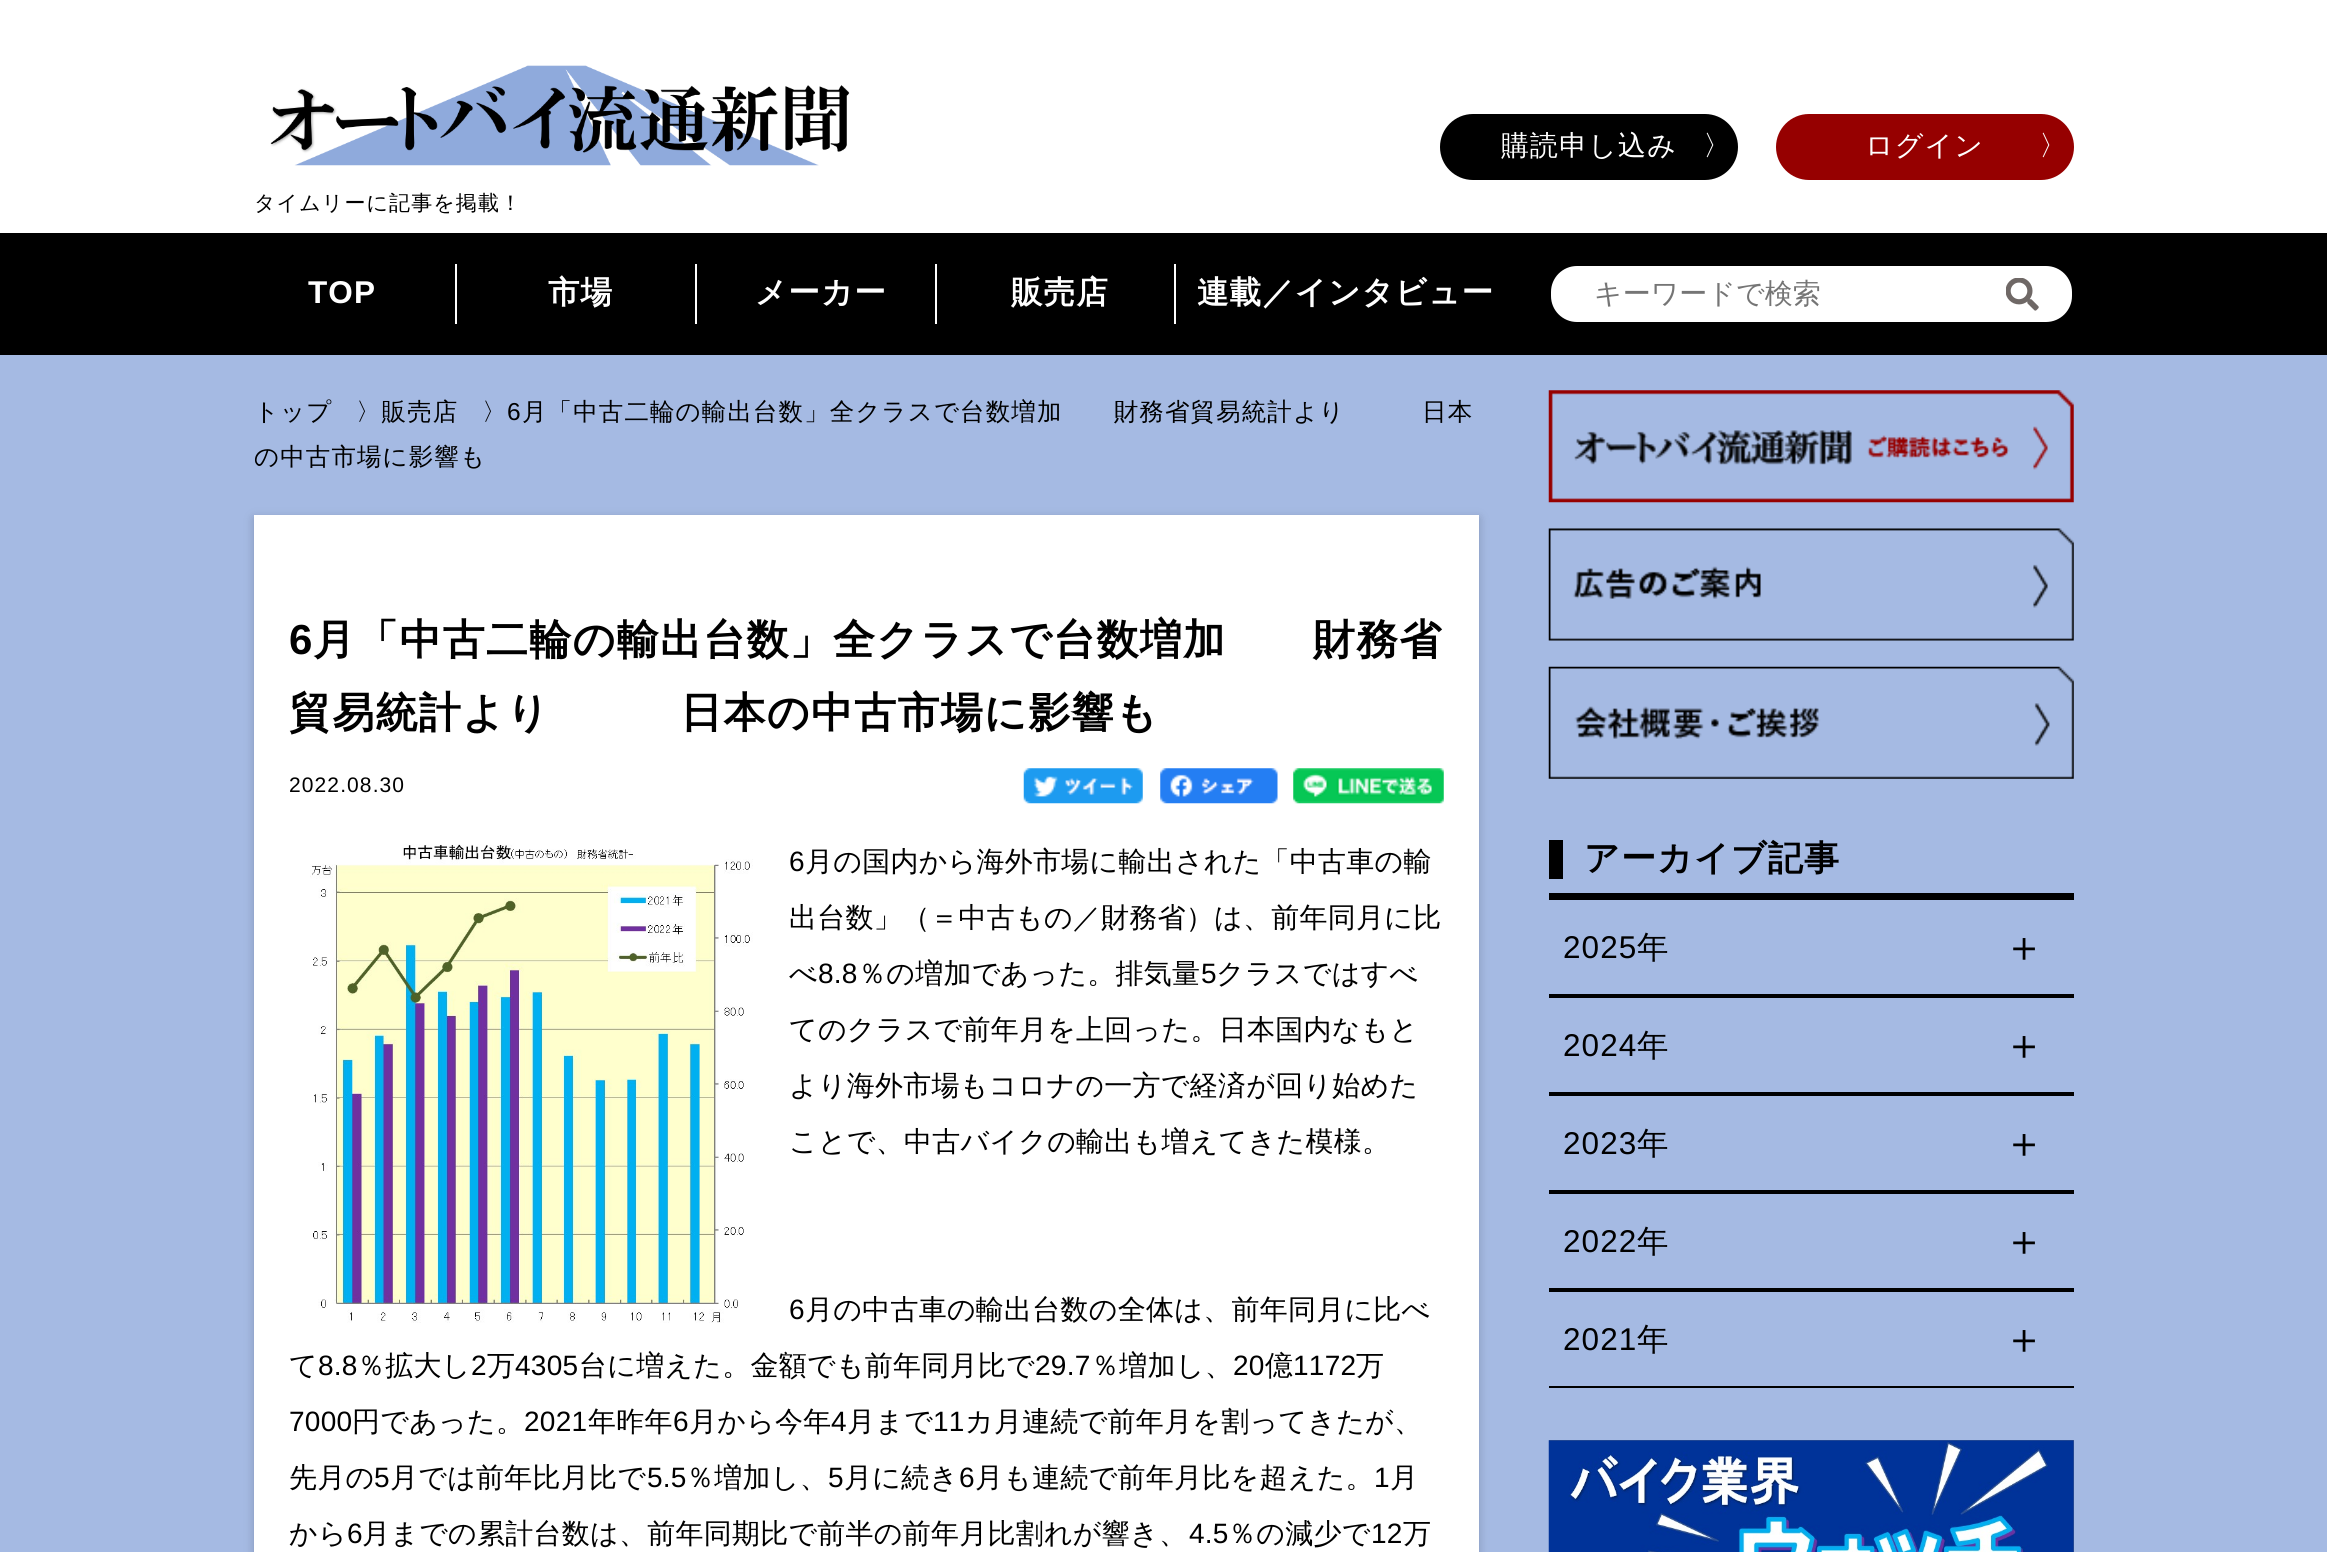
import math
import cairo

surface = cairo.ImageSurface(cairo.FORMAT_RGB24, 2327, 1552)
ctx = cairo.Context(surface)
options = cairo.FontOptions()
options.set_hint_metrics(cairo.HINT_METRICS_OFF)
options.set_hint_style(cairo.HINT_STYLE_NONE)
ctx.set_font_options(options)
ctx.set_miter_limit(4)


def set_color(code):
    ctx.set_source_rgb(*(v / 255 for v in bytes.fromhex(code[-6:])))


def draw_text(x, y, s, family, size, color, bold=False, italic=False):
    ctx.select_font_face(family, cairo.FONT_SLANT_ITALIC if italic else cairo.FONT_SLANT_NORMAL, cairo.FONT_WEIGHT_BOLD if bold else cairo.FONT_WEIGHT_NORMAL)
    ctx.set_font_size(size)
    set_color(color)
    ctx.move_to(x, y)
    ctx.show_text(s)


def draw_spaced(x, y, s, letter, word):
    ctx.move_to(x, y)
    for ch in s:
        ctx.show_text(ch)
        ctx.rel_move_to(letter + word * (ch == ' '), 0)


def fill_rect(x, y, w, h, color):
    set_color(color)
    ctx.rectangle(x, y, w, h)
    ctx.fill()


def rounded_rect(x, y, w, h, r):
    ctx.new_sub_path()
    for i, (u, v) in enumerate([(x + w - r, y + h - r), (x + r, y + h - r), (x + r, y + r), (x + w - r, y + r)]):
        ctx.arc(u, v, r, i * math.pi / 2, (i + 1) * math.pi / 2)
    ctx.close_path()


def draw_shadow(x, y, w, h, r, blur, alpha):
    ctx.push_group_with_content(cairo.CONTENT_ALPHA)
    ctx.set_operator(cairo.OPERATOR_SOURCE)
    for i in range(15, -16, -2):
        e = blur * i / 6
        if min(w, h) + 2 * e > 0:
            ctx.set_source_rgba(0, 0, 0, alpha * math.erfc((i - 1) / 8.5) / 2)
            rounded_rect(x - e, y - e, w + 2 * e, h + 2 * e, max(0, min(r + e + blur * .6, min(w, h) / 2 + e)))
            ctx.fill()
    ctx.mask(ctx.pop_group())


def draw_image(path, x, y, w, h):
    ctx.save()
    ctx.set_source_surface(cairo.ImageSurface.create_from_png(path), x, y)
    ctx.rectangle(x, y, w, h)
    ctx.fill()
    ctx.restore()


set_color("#ffffff")
ctx.paint()
set_color("#000000")
rounded_rect(1440, 114, 298, 66, 33)
ctx.fill()
ctx.select_font_face("WenQuanYi Zen Hei Medium")
ctx.set_font_size(28)
set_color("#ffffff")
draw_spaced(1501, 155, "購読申し込み", 1.1, 0)
draw_spaced(1703, 155, "〉", 1.1, 0)
set_color("#960000")
rounded_rect(1776, 114, 298, 66, 33)
ctx.fill()
set_color("#ffffff")
draw_spaced(1865, 155, "ログイン", 1.1, 0)
draw_spaced(2039, 155, "〉", 1.1, 0)
draw_image("assets/img1.png", 270, 65, 580, 101)
ctx.set_font_size(21)
set_color("#000000")
draw_spaced(254, 210, "タイムリーに記事を掲載！", 1.1, 0)
fill_rect(0, 233, 2327, 122, "#000000")
fill_rect(455, 264, 2, 60, "#ffffff")
ctx.select_font_face("Liberation Sans", cairo.FONT_SLANT_NORMAL, cairo.FONT_WEIGHT_BOLD)
ctx.set_font_size(31.5)
draw_spaced(308, 303, "TOP", 1.1, 0)
fill_rect(695, 264, 2, 60, "#ffffff")
ctx.select_font_face("WenQuanYi Zen Hei", cairo.FONT_SLANT_NORMAL, cairo.FONT_WEIGHT_BOLD)
draw_spaced(548, 303, "市場", 1.1, 0)
fill_rect(935, 264, 2, 60, "#ffffff")
draw_spaced(755, 303, "メーカー", 1.1, 0)
fill_rect(1174, 264, 2, 60, "#ffffff")
draw_spaced(1011, 303, "販売店", 1.1, 0)
draw_spaced(1197, 303, "連載／インタビュー", 1.1, 0)
rounded_rect(1550, 265, 523, 58, 27)
ctx.fill_preserve()
set_color("#000000")
ctx.stroke()
draw_text(1594, 303, "キーワードで検索", "WenQuanYi Zen Hei Medium", 28, "#757575")
draw_image("assets/img2.png", 2006, 278, 33, 33)
fill_rect(0, 355, 2327, 1197, "#a5bae3")
ctx.set_font_size(24.5)
set_color("#000000")
draw_spaced(254, 420, "トップ", 1.1, 0)
draw_spaced(356, 420, "〉販売店", 1.1, 0)
draw_spaced(482, 420, "〉", 1.1, 0)
ctx.select_font_face("Liberation Sans")
draw_spaced(507, 420, "6", 1.1, 0)
ctx.select_font_face("WenQuanYi Zen Hei Medium")
draw_spaced(522, 420, "月「中古二輪の輸出台数」全クラスで台数増加　　財務省貿易統計より　　　日本", 1.1, 0)
draw_spaced(254, 465, "の中古市場に影響も", 1.1, 0)
set_color("#000000")
draw_shadow(254, 518, 1225, 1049, 0, 5, 0.2)
fill_rect(254, 515, 1225, 1037, "#ffffff")
ctx.select_font_face("Liberation Sans", cairo.FONT_SLANT_NORMAL, cairo.FONT_WEIGHT_BOLD)
ctx.set_font_size(42)
set_color("#000000")
draw_spaced(289, 654, "6", 1.25, 0)
ctx.select_font_face("WenQuanYi Zen Hei", cairo.FONT_SLANT_NORMAL, cairo.FONT_WEIGHT_BOLD)
draw_spaced(313, 654, "月「中古二輪の輸出台数」全クラスで台数増加　　財務省", 1.25, 0)
draw_spaced(289, 727, "貿易統計より　　　日本の中古市場に影響も", 1.25, 0)
ctx.select_font_face("Liberation Sans")
ctx.set_font_size(21)
draw_spaced(289, 792, "2022.08.30", 1.1, 0)
draw_image("assets/img3.png", 1023, 768, 120, 36)
draw_image("assets/img4.png", 1160, 768, 118, 36)
draw_image("assets/img5.png", 1293, 768, 151, 36)
draw_image("assets/img6.png", 310, 844, 443, 479)
ctx.set_font_size(28)
draw_spaced(789, 871, "6", 0.25, 0)
ctx.select_font_face("WenQuanYi Zen Hei Medium")
draw_spaced(805, 871, "月の国内から海外市場に輸出された「中古車の輸", 0.25, 0)
draw_spaced(789, 927, "出台数」（＝中古もの／財務省）は、前年同月に比", 0.25, 0)
draw_spaced(789, 983, "べ", 0.25, 0)
ctx.select_font_face("Liberation Sans")
draw_spaced(818, 983, "8.8", 0.25, 0)
ctx.select_font_face("WenQuanYi Zen Hei Medium")
draw_spaced(858, 983, "％の増加であった。排気量", 0.25, 0)
ctx.select_font_face("Liberation Sans")
draw_spaced(1201, 983, "5", 0.25, 0)
ctx.select_font_face("WenQuanYi Zen Hei Medium")
draw_spaced(1216, 983, "クラスではすべ", 0.25, 0)
draw_spaced(789, 1039, "てのクラスで前年月を上回った。日本国内なもと", 0.25, 0)
draw_spaced(789, 1095, "より海外市場もコロナの一方で経済が回り始めた", 0.25, 0)
draw_spaced(789, 1151, "ことで、中古バイクの輸出も増えてきた模様。", 0.25, 0)
ctx.select_font_face("Liberation Sans")
draw_spaced(789, 1319, "6", 0.25, 0)
ctx.select_font_face("WenQuanYi Zen Hei Medium")
draw_spaced(805, 1319, "月の中古車の輸出台数の全体は、前年同月に比べ", 0.25, 0)
draw_spaced(289, 1375, "て", 0.25, 0)
ctx.select_font_face("Liberation Sans")
draw_spaced(318, 1375, "8.8", 0.25, 0)
ctx.select_font_face("WenQuanYi Zen Hei Medium")
draw_spaced(357, 1375, "％拡大し", 0.25, 0)
ctx.select_font_face("Liberation Sans")
draw_spaced(471, 1375, "2", 0.25, 0)
ctx.select_font_face("WenQuanYi Zen Hei Medium")
draw_spaced(487, 1375, "万", 0.25, 0)
ctx.select_font_face("Liberation Sans")
draw_spaced(515, 1375, "4305", 0.25, 0)
ctx.select_font_face("WenQuanYi Zen Hei Medium")
draw_spaced(579, 1375, "台に増えた。金額でも前年同月比で", 0.25, 0)
ctx.select_font_face("Liberation Sans")
draw_spaced(1035, 1375, "29.7", 0.25, 0)
ctx.select_font_face("WenQuanYi Zen Hei Medium")
draw_spaced(1091, 1375, "％増加し、", 0.25, 0)
ctx.select_font_face("Liberation Sans")
draw_spaced(1233, 1375, "20", 0.25, 0)
ctx.select_font_face("WenQuanYi Zen Hei Medium")
draw_spaced(1265, 1375, "億", 0.25, 0)
ctx.select_font_face("Liberation Sans")
draw_spaced(1293, 1375, "1172", 0.25, 0)
ctx.select_font_face("WenQuanYi Zen Hei Medium")
draw_spaced(1356, 1375, "万", 0.25, 0)
ctx.select_font_face("Liberation Sans")
draw_spaced(289, 1431, "7000", 0.25, 0)
ctx.select_font_face("WenQuanYi Zen Hei Medium")
draw_spaced(352, 1431, "円であった。", 0.25, 0)
ctx.select_font_face("Liberation Sans")
draw_spaced(524, 1431, "2021", 0.25, 0)
ctx.select_font_face("WenQuanYi Zen Hei Medium")
draw_spaced(588, 1431, "年昨年", 0.25, 0)
ctx.select_font_face("Liberation Sans")
draw_spaced(673, 1431, "6", 0.25, 0)
ctx.select_font_face("WenQuanYi Zen Hei Medium")
draw_spaced(689, 1431, "月から今年", 0.25, 0)
ctx.select_font_face("Liberation Sans")
draw_spaced(831, 1431, "4", 0.25, 0)
ctx.select_font_face("WenQuanYi Zen Hei Medium")
draw_spaced(847, 1431, "月まで", 0.25, 0)
ctx.select_font_face("Liberation Sans")
draw_spaced(933, 1431, "11", 0.25, 0)
ctx.select_font_face("WenQuanYi Zen Hei Medium")
draw_spaced(965, 1431, "カ月連続で前年月を割ってきたが、", 0.25, 0)
draw_spaced(289, 1487, "先月の", 0.25, 0)
ctx.select_font_face("Liberation Sans")
draw_spaced(374, 1487, "5", 0.25, 0)
ctx.select_font_face("WenQuanYi Zen Hei Medium")
draw_spaced(390, 1487, "月では前年比月比で", 0.25, 0)
ctx.select_font_face("Liberation Sans")
draw_spaced(647, 1487, "5.5", 0.25, 0)
ctx.select_font_face("WenQuanYi Zen Hei Medium")
draw_spaced(686, 1487, "％増加し、", 0.25, 0)
ctx.select_font_face("Liberation Sans")
draw_spaced(828, 1487, "5", 0.25, 0)
ctx.select_font_face("WenQuanYi Zen Hei Medium")
draw_spaced(844, 1487, "月に続き", 0.25, 0)
ctx.select_font_face("Liberation Sans")
draw_spaced(959, 1487, "6", 0.25, 0)
ctx.select_font_face("WenQuanYi Zen Hei Medium")
draw_spaced(975, 1487, "月も連続で前年月比を超えた。", 0.25, 0)
ctx.select_font_face("Liberation Sans")
draw_spaced(1374, 1487, "1", 0.25, 0)
ctx.select_font_face("WenQuanYi Zen Hei Medium")
draw_spaced(1390, 1487, "月", 0.25, 0)
draw_spaced(289, 1543, "から", 0.25, 0)
ctx.select_font_face("Liberation Sans")
draw_spaced(347, 1543, "6", 0.25, 0)
ctx.select_font_face("WenQuanYi Zen Hei Medium")
draw_spaced(362, 1543, "月までの累計台数は、前年同期比で前半の前年月比割れが響き、", 0.25, 0)
ctx.select_font_face("Liberation Sans")
draw_spaced(1189, 1543, "4.5", 0.25, 0)
ctx.select_font_face("WenQuanYi Zen Hei Medium")
draw_spaced(1228, 1543, "％の減少で", 0.25, 0)
ctx.select_font_face("Liberation Sans")
draw_spaced(1371, 1543, "12", 0.25, 0)
ctx.select_font_face("WenQuanYi Zen Hei Medium")
draw_spaced(1403, 1543, "万", 0.25, 0)
draw_image("assets/img7.png", 1548, 390, 526, 113)
draw_image("assets/img8.png", 1548, 528, 526, 113)
draw_image("assets/img9.png", 1548, 666, 526, 113)
fill_rect(1549, 893, 525, 7, "#000000")
fill_rect(1549, 840, 14, 39, "#000000")
ctx.select_font_face("WenQuanYi Zen Hei", cairo.FONT_SLANT_NORMAL, cairo.FONT_WEIGHT_BOLD)
ctx.set_font_size(35)
draw_spaced(1584, 870, "アーカイブ記事", 1.1, 0)
fill_rect(1549, 994, 525, 4, "#000000")
ctx.select_font_face("Liberation Sans")
ctx.set_font_size(31.5)
draw_spaced(1563, 958, "2025", 1.1, 0)
ctx.select_font_face("WenQuanYi Zen Hei Medium")
draw_spaced(1637, 958, "年", 1.1, 0)
ctx.set_font_size(42)
draw_spaced(2003, 961, "＋", 1.1, 0)
fill_rect(1549, 1092, 525, 4, "#000000")
ctx.select_font_face("Liberation Sans")
ctx.set_font_size(31.5)
draw_spaced(1563, 1056, "2024", 1.1, 0)
ctx.select_font_face("WenQuanYi Zen Hei Medium")
draw_spaced(1637, 1056, "年", 1.1, 0)
ctx.set_font_size(42)
draw_spaced(2003, 1059, "＋", 1.1, 0)
fill_rect(1549, 1190, 525, 4, "#000000")
ctx.select_font_face("Liberation Sans")
ctx.set_font_size(31.5)
draw_spaced(1563, 1154, "2023", 1.1, 0)
ctx.select_font_face("WenQuanYi Zen Hei Medium")
draw_spaced(1637, 1154, "年", 1.1, 0)
ctx.set_font_size(42)
draw_spaced(2003, 1157, "＋", 1.1, 0)
fill_rect(1549, 1288, 525, 4, "#000000")
ctx.select_font_face("Liberation Sans")
ctx.set_font_size(31.5)
draw_spaced(1563, 1252, "2022", 1.1, 0)
ctx.select_font_face("WenQuanYi Zen Hei Medium")
draw_spaced(1637, 1252, "年", 1.1, 0)
ctx.set_font_size(42)
draw_spaced(2003, 1255, "＋", 1.1, 0)
fill_rect(1549, 1386, 525, 2, "#000000")
ctx.select_font_face("Liberation Sans")
ctx.set_font_size(31.5)
draw_spaced(1563, 1350, "2021", 1.1, 0)
ctx.select_font_face("WenQuanYi Zen Hei Medium")
draw_spaced(1637, 1350, "年", 1.1, 0)
ctx.set_font_size(42)
draw_spaced(2003, 1353, "＋", 1.1, 0)
fill_rect(1549, 1440, 525, 112, "#808080")
draw_image("assets/img10.png", 1548, 1440, 526, 112)
surface.write_to_png("output.png")
